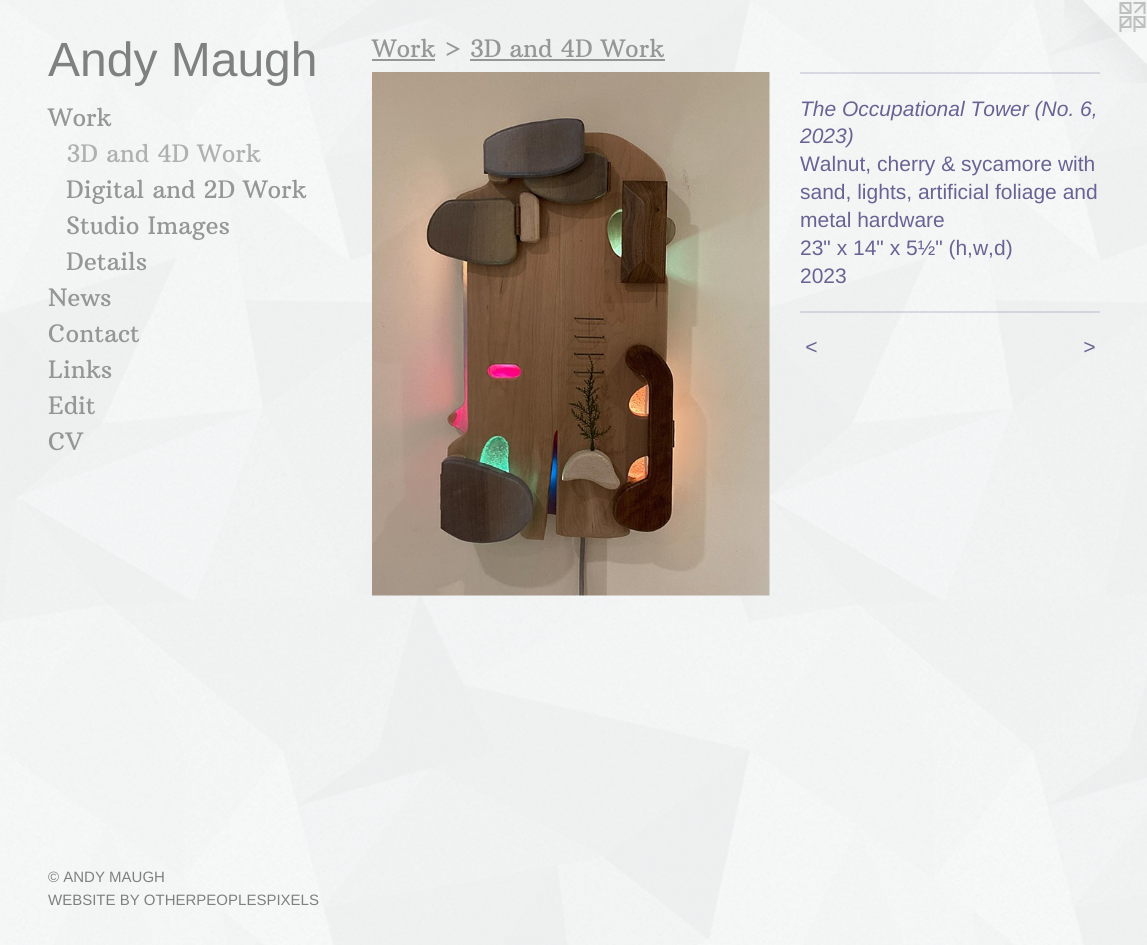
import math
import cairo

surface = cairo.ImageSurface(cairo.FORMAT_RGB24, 1147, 945)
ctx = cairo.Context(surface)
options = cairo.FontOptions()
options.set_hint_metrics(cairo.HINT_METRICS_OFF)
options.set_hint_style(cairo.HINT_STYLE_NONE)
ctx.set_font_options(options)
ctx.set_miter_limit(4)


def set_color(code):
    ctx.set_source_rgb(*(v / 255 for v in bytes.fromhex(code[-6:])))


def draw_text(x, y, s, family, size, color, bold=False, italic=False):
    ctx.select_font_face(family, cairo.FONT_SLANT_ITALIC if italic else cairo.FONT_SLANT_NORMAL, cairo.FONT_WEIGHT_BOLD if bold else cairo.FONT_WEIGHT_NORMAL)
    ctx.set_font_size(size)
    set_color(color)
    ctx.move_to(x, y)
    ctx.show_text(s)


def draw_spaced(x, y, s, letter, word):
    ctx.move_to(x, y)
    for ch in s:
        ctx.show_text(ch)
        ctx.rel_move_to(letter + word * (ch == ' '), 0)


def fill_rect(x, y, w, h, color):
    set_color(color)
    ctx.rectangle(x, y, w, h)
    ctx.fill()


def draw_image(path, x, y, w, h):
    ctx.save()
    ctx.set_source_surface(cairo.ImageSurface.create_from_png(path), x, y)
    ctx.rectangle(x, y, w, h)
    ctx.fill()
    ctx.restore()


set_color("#ffffff")
ctx.paint()
draw_image("assets/img1.png", 0, 0, 1147, 945)
draw_text(48, 76, "Andy Maugh", "Liberation Sans", 48, "#808080")
draw_text(48, 126, "Work", "Arbutus Slab", 24, "#969696")
draw_text(66, 162, "3D and 4D Work", "Arbutus Slab", 24, "#b0b0b0")
draw_text(66, 198, "Digital and 2D Work", "Arbutus Slab", 24, "#969696")
draw_text(66, 234, "Studio Images", "Arbutus Slab", 24, "#969696")
draw_text(66, 270, "Details", "Arbutus Slab", 24, "#969696")
draw_text(48, 306, "News", "Arbutus Slab", 24, "#969696")
draw_text(48, 342, "Contact", "Arbutus Slab", 24, "#969696")
draw_text(48, 378, "Links", "Arbutus Slab", 24, "#969696")
draw_text(48, 414, "Edit", "Arbutus Slab", 24, "#969696")
draw_text(48, 450, "CV", "Arbutus Slab", 24, "#969696")
draw_text(48, 882, "© ANDY MAUGH", "Liberation Sans", 15, "#808080")
draw_text(48, 905, "WEBSITE BY OTHERPEOPLESPIXELS", "Liberation Sans", 15, "#808080")
draw_text(372, 57, "Work > 3D and 4D Work", "Arbutus Slab", 24, "#969696")
fill_rect(372, 59, 63, 2, "#969696")
fill_rect(470, 59, 195, 2, "#969696")
draw_image("assets/img2.png", 372, 72, 398, 524)
draw_image("assets/img3.png", 1064, 0, 83, 83)
ctx.set_source_rgba(0.404, 0.392, 0.58, 0.2)
ctx.rectangle(800, 72, 300, 2)
ctx.fill()
draw_text(800, 116, "The Occupational Tower (No. 6,", "Liberation Sans", 21, "#676494", italic=True)
draw_text(800, 143, "2023)", "Liberation Sans", 21, "#676494", italic=True)
draw_text(800, 171, "Walnut, cherry & sycamore with", "Liberation Sans", 21, "#676494")
draw_text(800, 199, "sand, lights, artificial foliage and", "Liberation Sans", 21, "#676494")
draw_text(800, 227, "metal hardware", "Liberation Sans", 21, "#676494")
draw_text(800, 255, "23\" x 14\" x 5½\" (h,w,d)", "Liberation Sans", 21, "#676494")
draw_text(800, 283, "2023", "Liberation Sans", 21, "#676494")
ctx.set_source_rgba(0.404, 0.392, 0.58, 0.2)
ctx.rectangle(800, 311, 300, 2)
ctx.fill()
ctx.select_font_face("Liberation Sans", cairo.FONT_SLANT_ITALIC)
set_color("#676494")
draw_spaced(805, 354, "<", 2, 0)
draw_spaced(1083, 354, ">", 2, 0)
surface.write_to_png("output.png")
